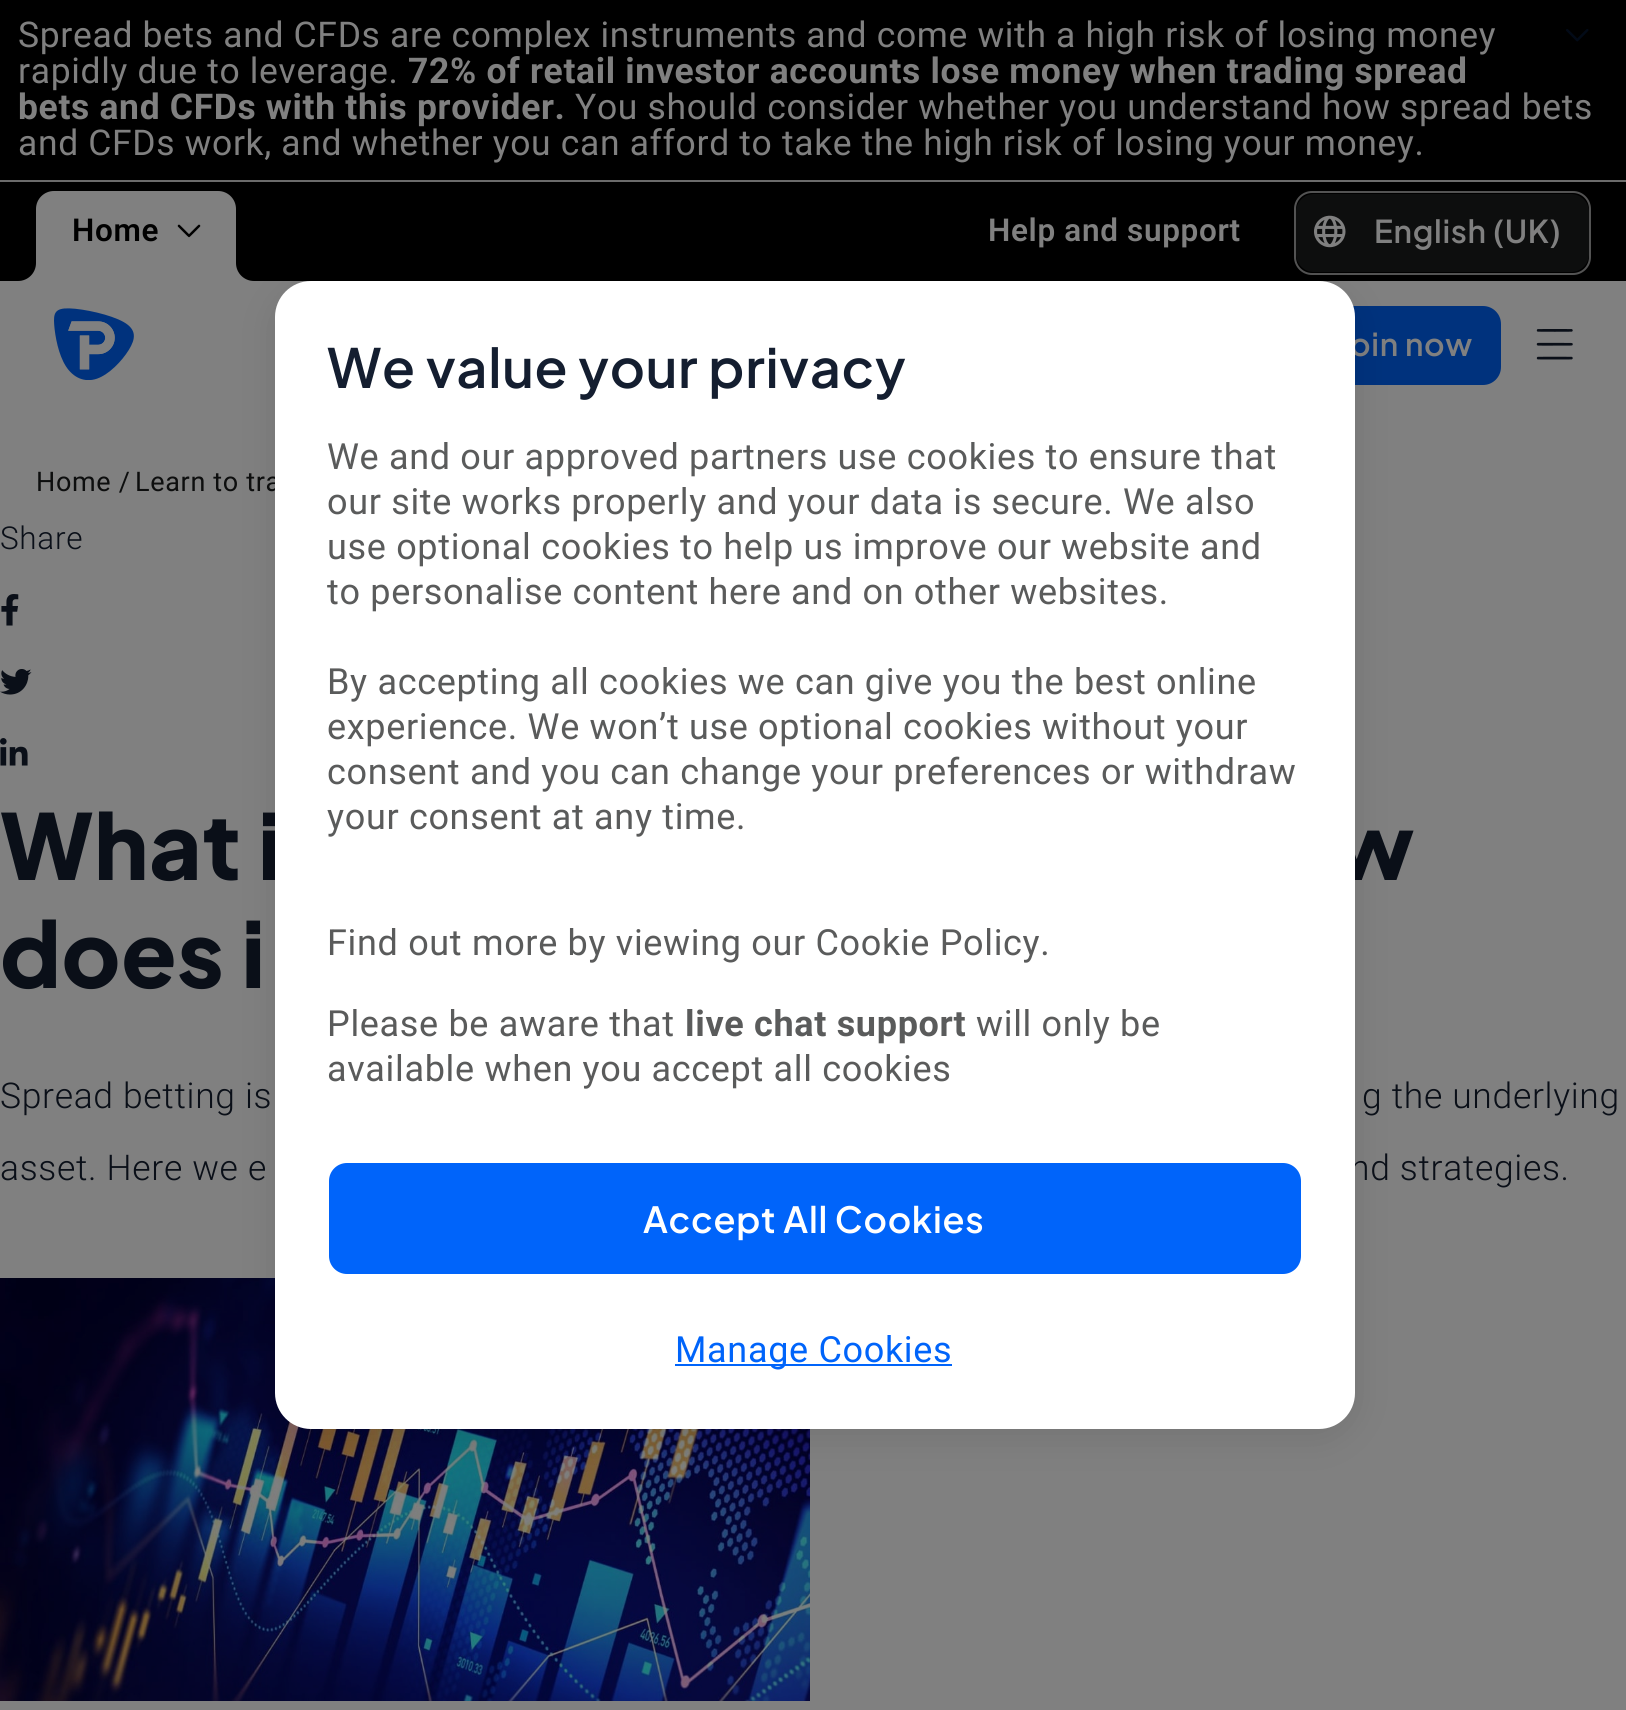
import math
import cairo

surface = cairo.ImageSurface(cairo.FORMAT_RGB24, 1626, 1710)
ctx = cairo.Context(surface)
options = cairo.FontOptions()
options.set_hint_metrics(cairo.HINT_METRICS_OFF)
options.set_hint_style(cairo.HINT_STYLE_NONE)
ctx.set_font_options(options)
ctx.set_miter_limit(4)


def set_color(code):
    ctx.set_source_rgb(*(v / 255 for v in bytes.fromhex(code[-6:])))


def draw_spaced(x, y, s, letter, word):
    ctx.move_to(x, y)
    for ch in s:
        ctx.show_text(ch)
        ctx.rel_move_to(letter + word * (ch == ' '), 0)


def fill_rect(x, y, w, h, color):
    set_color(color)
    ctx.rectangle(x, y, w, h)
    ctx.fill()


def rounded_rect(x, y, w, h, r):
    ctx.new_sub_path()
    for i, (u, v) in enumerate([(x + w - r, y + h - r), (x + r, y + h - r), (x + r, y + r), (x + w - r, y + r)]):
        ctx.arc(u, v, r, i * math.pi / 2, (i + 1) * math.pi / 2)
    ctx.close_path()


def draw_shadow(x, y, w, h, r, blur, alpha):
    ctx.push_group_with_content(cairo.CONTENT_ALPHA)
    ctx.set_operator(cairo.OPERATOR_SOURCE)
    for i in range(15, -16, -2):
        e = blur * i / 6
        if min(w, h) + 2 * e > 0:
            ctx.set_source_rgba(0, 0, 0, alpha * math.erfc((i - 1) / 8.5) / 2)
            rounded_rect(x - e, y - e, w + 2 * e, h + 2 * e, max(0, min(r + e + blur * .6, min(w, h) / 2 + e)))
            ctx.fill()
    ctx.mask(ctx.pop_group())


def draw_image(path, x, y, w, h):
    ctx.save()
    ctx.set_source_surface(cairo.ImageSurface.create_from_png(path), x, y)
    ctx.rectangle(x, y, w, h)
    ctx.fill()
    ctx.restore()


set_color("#808080")
ctx.paint()
fill_rect(0, 0, 1626, 180, "#000000")
fill_rect(0, 180, 1626, 2, "#6b6b6b")
ctx.select_font_face("Roboto")
ctx.set_font_size(35.45)
set_color("#808080")
draw_spaced(18, 47, "Spread bets and CFDs are complex instruments and come with a high risk of losing money", 0.67, 0)
draw_spaced(18, 83, "rapidly due to leverage.", 0.67, 0)
ctx.select_font_face("Roboto", cairo.FONT_SLANT_NORMAL, cairo.FONT_WEIGHT_BOLD)
draw_spaced(408, 83, "72% of retail investor accounts lose money when trading spread", 0.67, 0)
draw_spaced(18, 119, "bets and CFDs with this provider.", 0.67, 0)
ctx.select_font_face("Roboto")
draw_spaced(575, 119, "You should consider whether you understand how spread bets", 0.67, 0)
draw_spaced(18, 155, "and CFDs work, and whether you can afford to take the high risk of losing your money.", 0.67, 0)
draw_image("assets/img1.png", 1566, 29, 23, 13)
fill_rect(0, 182, 1626, 99, "#000000")
set_color("#808080")
ctx.new_path()
ctx.move_to(54, 191)
ctx.line_to(218, 191)
ctx.curve_to(228, 191, 236, 199, 236, 209)
ctx.line_to(236, 281)
ctx.line_to(36, 281)
ctx.line_to(36, 209)
ctx.curve_to(36, 199, 44, 191, 54, 191)
ctx.close_path()
ctx.fill()
ctx.select_font_face("Roboto SemiBold")
ctx.set_font_size(31.5)
set_color("#000000")
draw_spaced(72, 241, "Home", 0.67, 0)
draw_image("assets/img2.png", 177, 224, 24, 14)
fill_rect(18, 263, 18, 18, "#808080")
set_color("#000000")
ctx.new_path()
ctx.move_to(18, 245)
ctx.curve_to(28, 245, 36, 253, 36, 263)
ctx.curve_to(36, 273, 28, 281, 18, 281)
ctx.close_path()
ctx.fill()
fill_rect(236, 263, 18, 18, "#808080")
set_color("#000000")
ctx.new_path()
ctx.move_to(254, 245)
ctx.line_to(254, 281)
ctx.curve_to(244, 281, 236, 273, 236, 263)
ctx.curve_to(236, 253, 244, 245, 254, 245)
ctx.close_path()
ctx.fill()
set_color("#808080")
draw_spaced(988, 241, "Help and support", 0.67, 0)
rounded_rect(1295, 192, 295, 82, 17)
set_color("#535353")
ctx.stroke()
set_color("#0d0e0e")
rounded_rect(1296, 194, 293, 78, 18)
ctx.fill()
draw_image("assets/img3.png", 1314, 215, 32, 33)
ctx.select_font_face("Plus Jakarta Sans SemiBold")
set_color("#808080")
draw_spaced(1374, 243, "English (UK)", 0.67, 0)
draw_image("assets/img4.png", 54, 308, 80, 72)
set_color("#00327d")
rounded_rect(1310, 306, 191, 79, 18)
ctx.fill()
set_color("#808080")
draw_spaced(1350, 356, "oin now", 0.67, 0)
draw_image("assets/img5.png", 1536, 329, 37, 31)
ctx.select_font_face("Roboto")
ctx.set_font_size(27)
set_color("#0d0e0e")
draw_spaced(36, 491, "Home /", 0.67, 0)
draw_spaced(135, 491, "Learn to tra", 0.67, 0)
ctx.select_font_face("Roboto Light")
ctx.set_font_size(31.5)
set_color("#0a0f18")
draw_spaced(0, 549, "Share", 0.67, 0)
draw_image("assets/img6.png", 1, 594, 18, 32)
draw_image("assets/img7.png", 0, 669, 32, 26)
draw_image("assets/img8.png", 0, 738, 28, 28)
ctx.select_font_face("Plus Jakarta Sans ExtraBold")
ctx.set_font_size(90.5)
draw_spaced(0, 880, "What i", 0.67, 0)
draw_spaced(1332, 880, "w", 0.67, 0)
draw_spaced(0, 988, "does i", 0.67, 0)
ctx.select_font_face("Roboto Light")
ctx.set_font_size(35.45)
draw_spaced(0, 1108, "Spread betting is", 0.67, 0)
draw_spaced(1362, 1108, "g the underlying", 0.67, 0)
draw_spaced(0, 1180, "asset. Here we e", 0.67, 0)
draw_spaced(1350, 1180, "nd strategies.", 0.67, 0)
draw_image("assets/img9.png", 0, 1278, 810, 423)
set_color("#000000")
draw_shadow(275, 290, 1080, 1148, 36, 18, 0.1)
set_color("#ffffff")
rounded_rect(275, 281, 1080, 1148, 36)
ctx.fill()
ctx.select_font_face("Plus Jakarta Sans SemiBold")
ctx.set_font_size(54)
set_color("#141e30")
draw_spaced(327, 388, "We value your privacy", 0.67, 0)
ctx.select_font_face("Roboto")
ctx.set_font_size(36)
set_color("#5a5b5b")
draw_spaced(327, 469, "We and our approved partners use cookies to ensure that", 0.67, 0)
draw_spaced(327, 514, "our site works properly and your data is secure. We also", 0.67, 0)
draw_spaced(327, 559, "use optional cookies to help us improve our website and", 0.67, 0)
draw_spaced(327, 604, "to personalise content here and on other websites.", 0.67, 0)
draw_spaced(327, 694, "By accepting all cookies we can give you the best online", 0.67, 0)
draw_spaced(327, 739, "experience. We won’t use optional cookies without your", 0.67, 0)
draw_spaced(327, 784, "consent and you can change your preferences or withdraw", 0.67, 0)
draw_spaced(327, 829, "your consent at any time.", 0.67, 0)
draw_spaced(327, 955, "Find out more by viewing our Cookie Policy.", 0.67, 0)
draw_spaced(327, 1036, "Please be aware that", 0.67, 0)
ctx.select_font_face("Roboto", cairo.FONT_SLANT_NORMAL, cairo.FONT_WEIGHT_BOLD)
draw_spaced(685, 1036, "live chat support", 0.67, 0)
ctx.select_font_face("Roboto")
draw_spaced(976, 1036, "will only be", 0.67, 0)
draw_spaced(327, 1081, "available when you accept all cookies", 0.67, 0)
set_color("#0064fa")
rounded_rect(329, 1163, 972, 111, 18)
ctx.fill()
ctx.select_font_face("Plus Jakarta Sans SemiBold")
set_color("#ffffff")
draw_spaced(643, 1233, "Accept All Cookies", 0.67, 0)
fill_rect(675, 1364, 277, 2, "#0064fa")
ctx.select_font_face("Roboto")
draw_spaced(675, 1362, "Manage Cookies", 0.67, 0)
surface.write_to_png("output.png")
